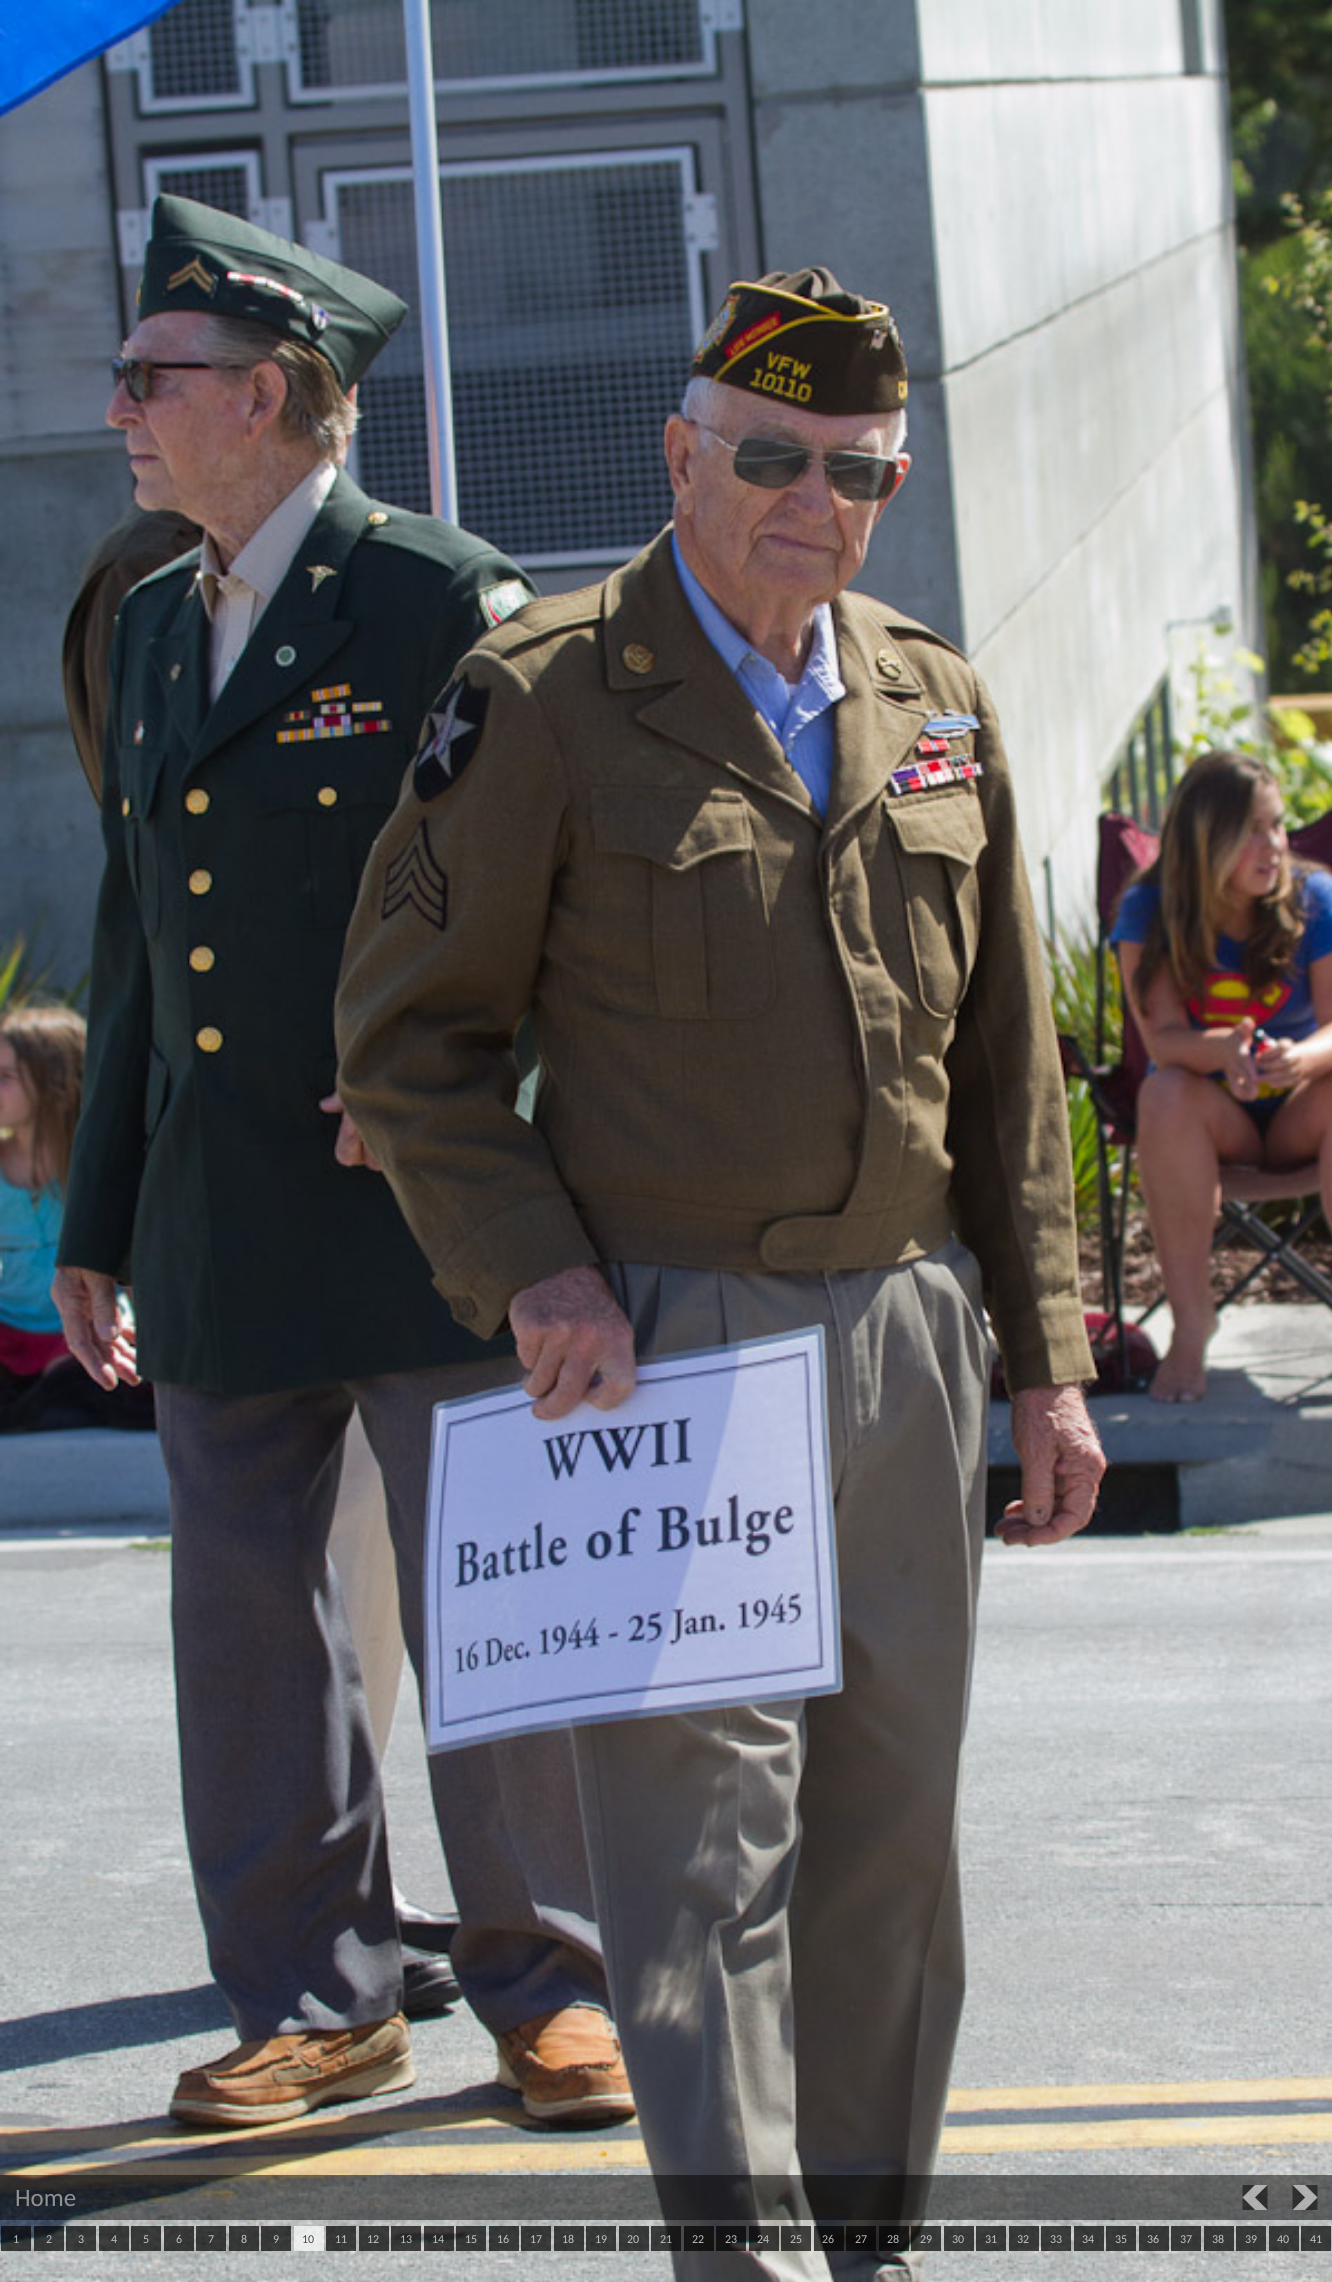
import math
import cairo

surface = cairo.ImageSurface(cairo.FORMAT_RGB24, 1332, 2282)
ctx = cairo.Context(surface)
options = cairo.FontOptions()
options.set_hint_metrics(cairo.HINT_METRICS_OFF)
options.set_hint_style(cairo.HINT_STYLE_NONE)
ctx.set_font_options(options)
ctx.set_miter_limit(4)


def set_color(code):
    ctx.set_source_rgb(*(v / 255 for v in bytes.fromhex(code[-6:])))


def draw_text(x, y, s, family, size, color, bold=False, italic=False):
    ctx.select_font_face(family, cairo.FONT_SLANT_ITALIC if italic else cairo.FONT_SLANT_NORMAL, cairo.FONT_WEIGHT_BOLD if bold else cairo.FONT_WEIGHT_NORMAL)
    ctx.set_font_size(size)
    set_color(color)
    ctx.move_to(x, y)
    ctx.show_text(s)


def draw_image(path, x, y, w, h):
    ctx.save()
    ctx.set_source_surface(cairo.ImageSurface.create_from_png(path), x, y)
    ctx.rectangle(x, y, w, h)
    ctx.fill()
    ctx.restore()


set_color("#ffffff")
ctx.paint()
draw_image("assets/img1.png", 0, 0, 1332, 2282)
ctx.set_source_rgba(0, 0, 0, 0.5)
ctx.rectangle(0, 2175, 1332, 45)
ctx.fill()
ctx.new_path()
ctx.move_to(1242.5, 2185)
ctx.line_to(1255, 2185)
ctx.line_to(1242.5, 2197.5)
ctx.close_path()
ctx.fill()
ctx.set_source_rgba(1, 1, 1, 0.5)
ctx.new_path()
ctx.move_to(1255, 2185)
ctx.line_to(1255, 2210)
ctx.line_to(1242.5, 2197.5)
ctx.close_path()
ctx.fill()
ctx.set_source_rgba(0, 0, 0, 0.5)
ctx.new_path()
ctx.move_to(1255, 2210)
ctx.line_to(1242.5, 2210)
ctx.line_to(1242.5, 2197.5)
ctx.close_path()
ctx.fill()
ctx.set_source_rgba(1, 1, 1, 0.5)
ctx.new_path()
ctx.move_to(1255, 2185)
ctx.line_to(1267.5, 2185)
ctx.line_to(1255, 2197.5)
ctx.close_path()
ctx.fill()
ctx.set_source_rgba(0, 0, 0, 0.5)
ctx.new_path()
ctx.move_to(1267.5, 2185)
ctx.line_to(1267.5, 2210)
ctx.line_to(1255, 2197.5)
ctx.close_path()
ctx.fill()
ctx.set_source_rgba(1, 1, 1, 0.5)
ctx.new_path()
ctx.move_to(1267.5, 2210)
ctx.line_to(1255, 2210)
ctx.line_to(1255, 2197.5)
ctx.close_path()
ctx.move_to(1292.5, 2185)
ctx.line_to(1305, 2185)
ctx.line_to(1305, 2197.5)
ctx.close_path()
ctx.fill()
draw_text(15, 2206, "Home", "Carlito", 25, "#8f9295")
ctx.set_source_rgba(1, 1, 1, 0.5)
ctx.new_path()
ctx.move_to(1305, 2210)
ctx.line_to(1292.5, 2210)
ctx.line_to(1305, 2197.5)
ctx.close_path()
ctx.fill()
ctx.set_source_rgba(0, 0, 0, 0.5)
ctx.new_path()
ctx.move_to(1292.5, 2210)
ctx.line_to(1292.5, 2185)
ctx.line_to(1305, 2197.5)
ctx.close_path()
ctx.move_to(1305, 2185)
ctx.line_to(1317.5, 2185)
ctx.line_to(1317.5, 2197.5)
ctx.close_path()
ctx.fill()
ctx.new_path()
ctx.move_to(1317.5, 2210)
ctx.line_to(1305, 2210)
ctx.line_to(1317.5, 2197.5)
ctx.close_path()
ctx.fill()
ctx.set_source_rgba(1, 1, 1, 0.5)
ctx.new_path()
ctx.move_to(1305, 2210)
ctx.line_to(1305, 2185)
ctx.line_to(1317.5, 2197.5)
ctx.close_path()
ctx.fill()
ctx.set_source_rgba(0, 0, 0, 0.7)
ctx.rectangle(1, 2226, 30, 25)
ctx.fill()
draw_text(13, 2243, "1", "Carlito", 12, "#babdbd")
ctx.set_source_rgba(0, 0, 0, 0.7)
ctx.rectangle(34, 2226, 30, 25)
ctx.fill()
draw_text(46, 2243, "2", "Carlito", 12, "#c1c2c3")
ctx.set_source_rgba(0, 0, 0, 0.7)
ctx.rectangle(66, 2226, 30, 25)
ctx.fill()
draw_text(78, 2243, "3", "Carlito", 12, "#c1c2c3")
ctx.set_source_rgba(0, 0, 0, 0.7)
ctx.rectangle(99, 2226, 30, 25)
ctx.fill()
draw_text(111, 2243, "4", "Carlito", 12, "#c1c2c3")
ctx.set_source_rgba(0, 0, 0, 0.7)
ctx.rectangle(131, 2226, 30, 25)
ctx.fill()
draw_text(143, 2243, "5", "Carlito", 12, "#c1c2c3")
ctx.set_source_rgba(0, 0, 0, 0.7)
ctx.rectangle(164, 2226, 30, 25)
ctx.fill()
draw_text(176, 2243, "6", "Carlito", 12, "#c1c2c3")
ctx.set_source_rgba(0, 0, 0, 0.7)
ctx.rectangle(196, 2226, 30, 25)
ctx.fill()
draw_text(208, 2243, "7", "Carlito", 12, "#c1c2c3")
ctx.set_source_rgba(0, 0, 0, 0.7)
ctx.rectangle(229, 2226, 30, 25)
ctx.fill()
draw_text(241, 2243, "8", "Carlito", 12, "#c1c2c3")
ctx.set_source_rgba(0, 0, 0, 0.7)
ctx.rectangle(261, 2226, 30, 25)
ctx.fill()
draw_text(273, 2243, "9", "Carlito", 12, "#c1c2c3")
ctx.set_source_rgba(1, 1, 1, 0.7)
ctx.rectangle(294, 2226, 30, 25)
ctx.fill()
draw_text(302, 2243, "10", "Carlito", 12, "#474747")
ctx.set_source_rgba(0, 0, 0, 0.7)
ctx.rectangle(326, 2226, 30, 25)
ctx.fill()
draw_text(335, 2243, "11", "Carlito", 12, "#c1c2c3")
ctx.set_source_rgba(0, 0, 0, 0.7)
ctx.rectangle(359, 2226, 30, 25)
ctx.fill()
draw_text(367, 2243, "12", "Carlito", 12, "#c1c2c3")
ctx.set_source_rgba(0, 0, 0, 0.7)
ctx.rectangle(391, 2226, 30, 25)
ctx.fill()
draw_text(400, 2243, "13", "Carlito", 12, "#babdbd")
ctx.set_source_rgba(0, 0, 0, 0.7)
ctx.rectangle(424, 2226, 30, 25)
ctx.fill()
draw_text(432, 2243, "14", "Carlito", 12, "#babdbd")
ctx.set_source_rgba(0, 0, 0, 0.7)
ctx.rectangle(456, 2226, 30, 25)
ctx.fill()
draw_text(465, 2243, "15", "Carlito", 12, "#c1c2c3")
ctx.set_source_rgba(0, 0, 0, 0.7)
ctx.rectangle(489, 2226, 30, 25)
ctx.fill()
draw_text(497, 2243, "16", "Carlito", 12, "#c1c2c3")
ctx.set_source_rgba(0, 0, 0, 0.7)
ctx.rectangle(521, 2226, 30, 25)
ctx.fill()
draw_text(530, 2243, "17", "Carlito", 12, "#c1c2c3")
ctx.set_source_rgba(0, 0, 0, 0.7)
ctx.rectangle(554, 2226, 30, 25)
ctx.fill()
draw_text(562, 2243, "18", "Carlito", 12, "#c1c2c3")
ctx.set_source_rgba(0, 0, 0, 0.7)
ctx.rectangle(586, 2226, 30, 25)
ctx.fill()
draw_text(595, 2243, "19", "Carlito", 12, "#c1c2c3")
ctx.set_source_rgba(0, 0, 0, 0.7)
ctx.rectangle(619, 2226, 30, 25)
ctx.fill()
draw_text(627, 2243, "20", "Carlito", 12, "#c1c2c3")
ctx.set_source_rgba(0, 0, 0, 0.7)
ctx.rectangle(651, 2226, 30, 25)
ctx.fill()
draw_text(660, 2243, "21", "Carlito", 12, "#babdbd")
ctx.set_source_rgba(0, 0, 0, 0.7)
ctx.rectangle(684, 2226, 30, 25)
ctx.fill()
draw_text(692, 2243, "22", "Carlito", 12, "#babdbd")
ctx.set_source_rgba(0, 0, 0, 0.7)
ctx.rectangle(716, 2226, 30, 25)
ctx.fill()
draw_text(725, 2243, "23", "Carlito", 12, "#babdbd")
ctx.set_source_rgba(0, 0, 0, 0.7)
ctx.rectangle(749, 2226, 30, 25)
ctx.fill()
draw_text(757, 2243, "24", "Carlito", 12, "#c1c2c3")
ctx.set_source_rgba(0, 0, 0, 0.7)
ctx.rectangle(781, 2226, 30, 25)
ctx.fill()
draw_text(790, 2243, "25", "Carlito", 12, "#c1c2c3")
ctx.set_source_rgba(0, 0, 0, 0.7)
ctx.rectangle(814, 2226, 30, 25)
ctx.fill()
draw_text(822, 2243, "26", "Carlito", 12, "#b7b7b7")
ctx.set_source_rgba(0, 0, 0, 0.7)
ctx.rectangle(846, 2226, 30, 25)
ctx.fill()
draw_text(855, 2243, "27", "Carlito", 12, "#b7b7b7")
ctx.set_source_rgba(0, 0, 0, 0.7)
ctx.rectangle(879, 2226, 30, 25)
ctx.fill()
draw_text(887, 2243, "28", "Carlito", 12, "#b7b7b7")
ctx.set_source_rgba(0, 0, 0, 0.7)
ctx.rectangle(911, 2226, 30, 25)
ctx.fill()
draw_text(920, 2243, "29", "Carlito", 12, "#c1c2c3")
ctx.set_source_rgba(0, 0, 0, 0.7)
ctx.rectangle(944, 2226, 30, 25)
ctx.fill()
draw_text(952, 2243, "30", "Carlito", 12, "#c1c2c3")
ctx.set_source_rgba(0, 0, 0, 0.7)
ctx.rectangle(976, 2226, 30, 25)
ctx.fill()
draw_text(985, 2243, "31", "Carlito", 12, "#c1c2c3")
ctx.set_source_rgba(0, 0, 0, 0.7)
ctx.rectangle(1009, 2226, 30, 25)
ctx.fill()
draw_text(1017, 2243, "32", "Carlito", 12, "#c1c2c3")
ctx.set_source_rgba(0, 0, 0, 0.7)
ctx.rectangle(1041, 2226, 30, 25)
ctx.fill()
draw_text(1050, 2243, "33", "Carlito", 12, "#c1c2c3")
ctx.set_source_rgba(0, 0, 0, 0.7)
ctx.rectangle(1074, 2226, 30, 25)
ctx.fill()
draw_text(1082, 2243, "34", "Carlito", 12, "#c1c2c3")
ctx.set_source_rgba(0, 0, 0, 0.7)
ctx.rectangle(1106, 2226, 30, 25)
ctx.fill()
draw_text(1115, 2243, "35", "Carlito", 12, "#c1c2c3")
ctx.set_source_rgba(0, 0, 0, 0.7)
ctx.rectangle(1139, 2226, 30, 25)
ctx.fill()
draw_text(1147, 2243, "36", "Carlito", 12, "#c1c2c3")
ctx.set_source_rgba(0, 0, 0, 0.7)
ctx.rectangle(1171, 2226, 30, 25)
ctx.fill()
draw_text(1180, 2243, "37", "Carlito", 12, "#c1c2c3")
ctx.set_source_rgba(0, 0, 0, 0.7)
ctx.rectangle(1204, 2226, 30, 25)
ctx.fill()
draw_text(1212, 2243, "38", "Carlito", 12, "#c1c2c3")
ctx.set_source_rgba(0, 0, 0, 0.7)
ctx.rectangle(1236, 2226, 30, 25)
ctx.fill()
draw_text(1245, 2243, "39", "Carlito", 12, "#c1c2c3")
ctx.set_source_rgba(0, 0, 0, 0.7)
ctx.rectangle(1269, 2226, 30, 25)
ctx.fill()
draw_text(1277, 2243, "40", "Carlito", 12, "#c1c2c3")
ctx.set_source_rgba(0, 0, 0, 0.7)
ctx.rectangle(1301, 2226, 30, 25)
ctx.fill()
draw_text(1310, 2243, "41", "Carlito", 12, "#c1c2c3")
surface.write_to_png("output.png")
